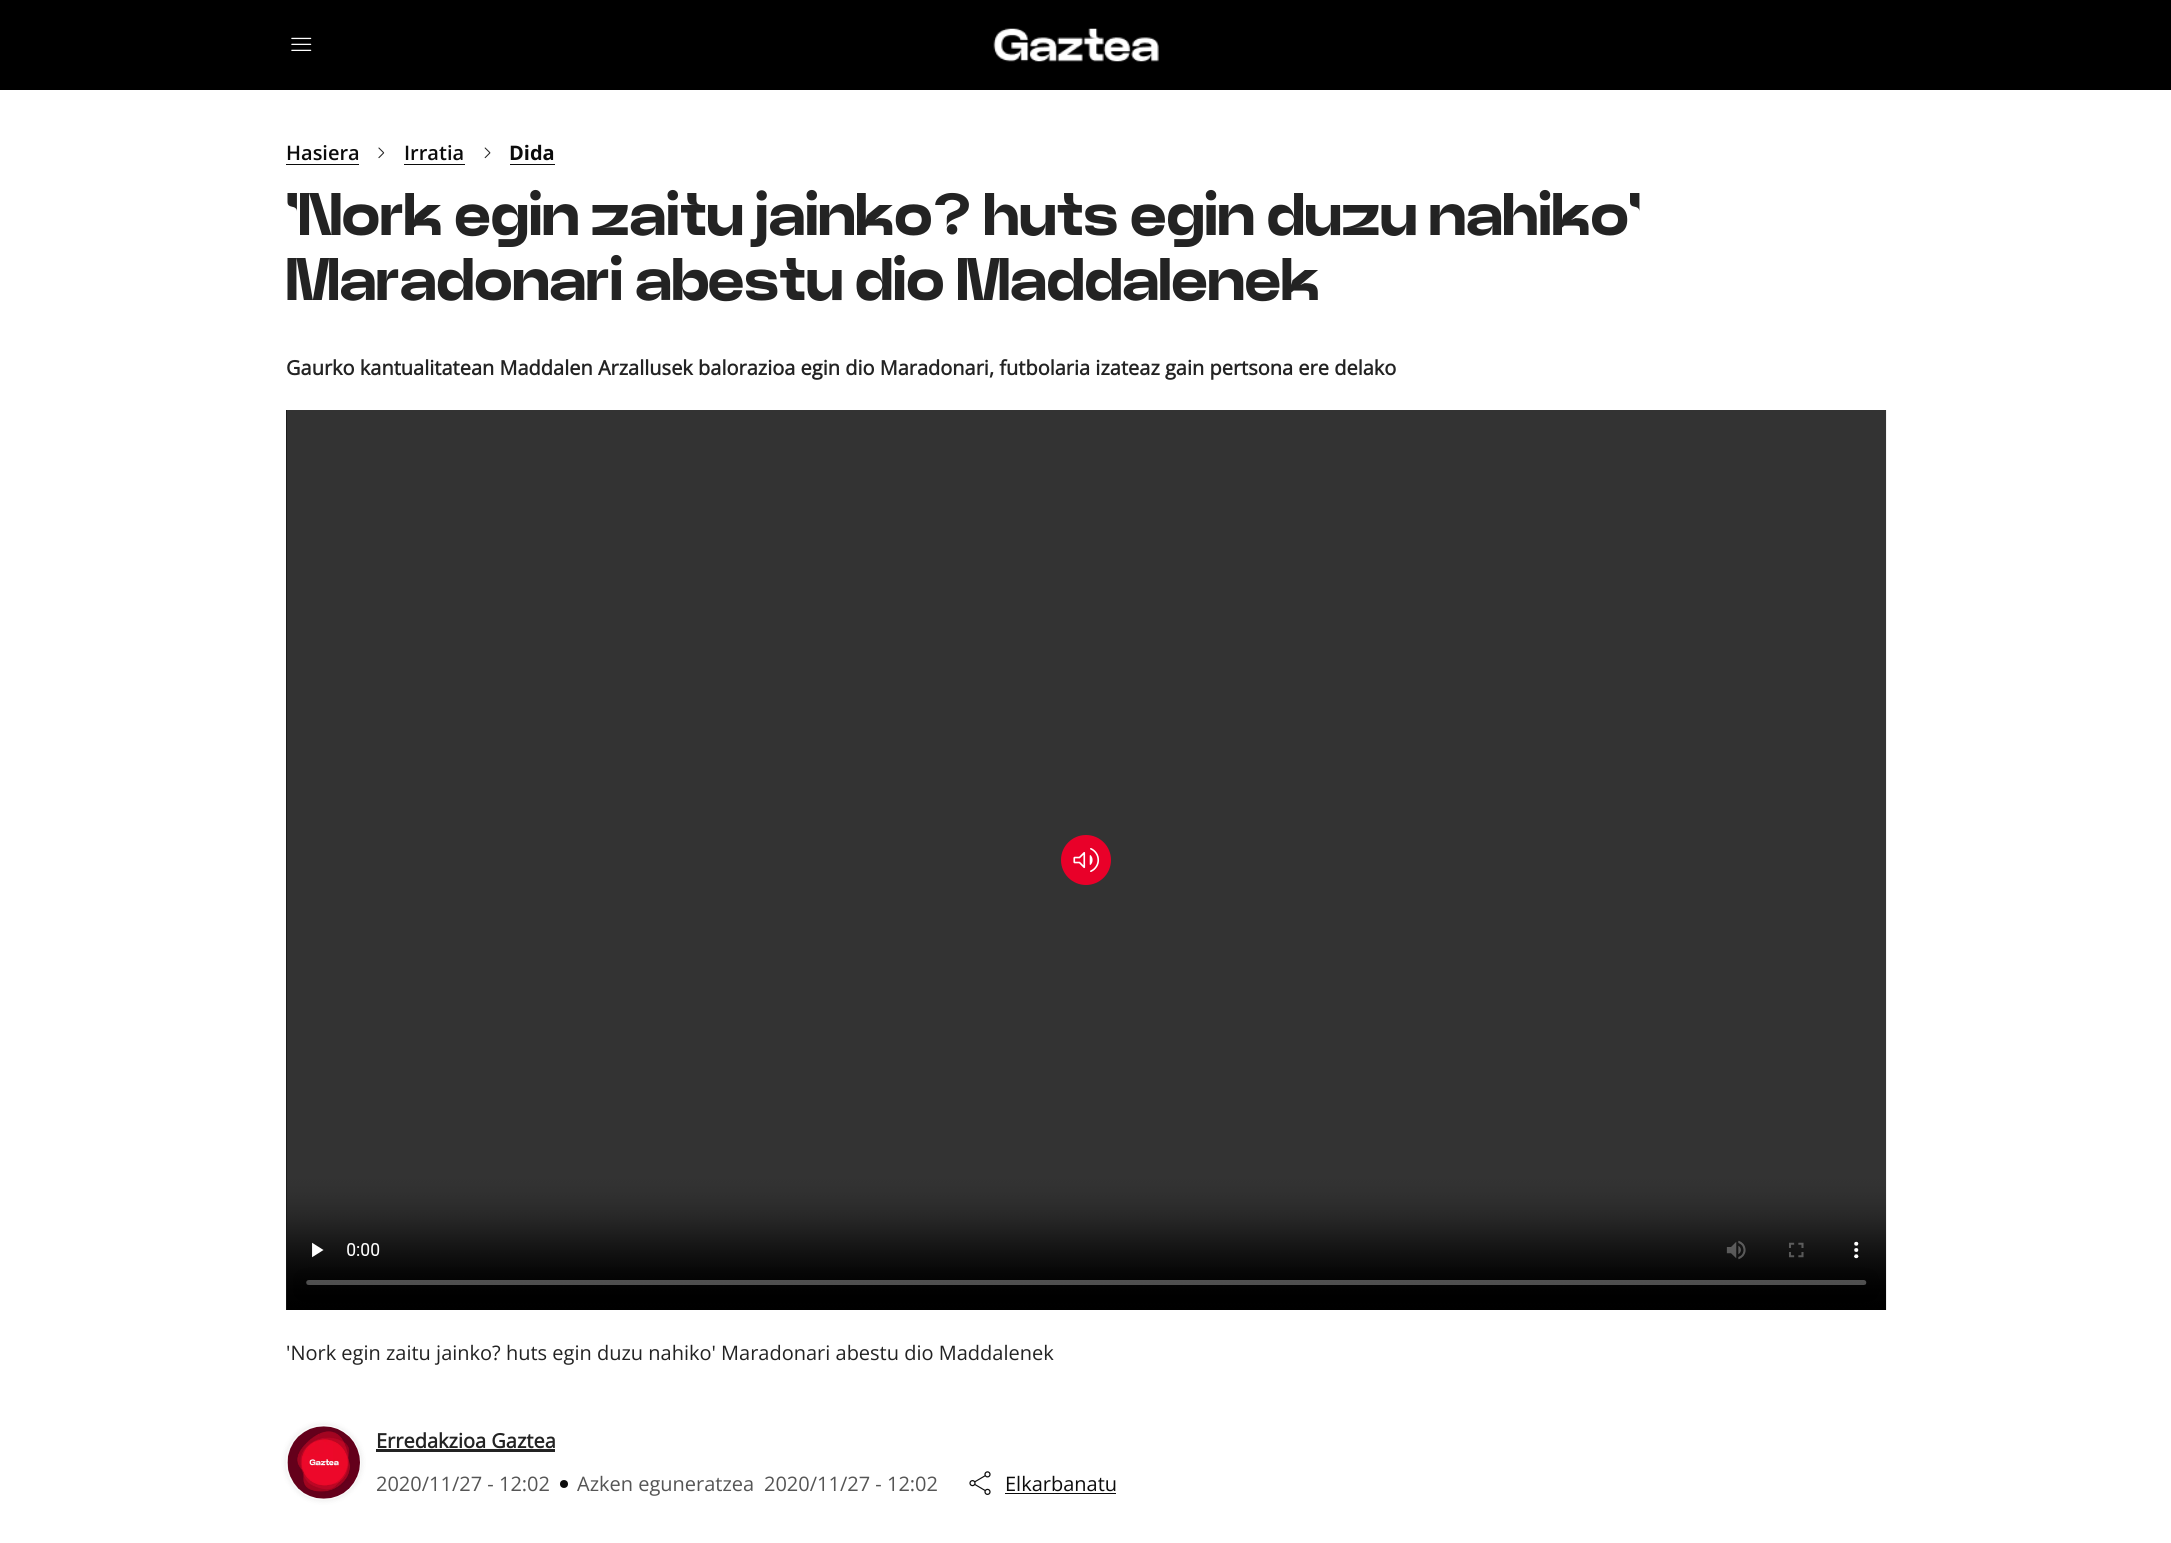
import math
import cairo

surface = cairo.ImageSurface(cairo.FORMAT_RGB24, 2171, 1543)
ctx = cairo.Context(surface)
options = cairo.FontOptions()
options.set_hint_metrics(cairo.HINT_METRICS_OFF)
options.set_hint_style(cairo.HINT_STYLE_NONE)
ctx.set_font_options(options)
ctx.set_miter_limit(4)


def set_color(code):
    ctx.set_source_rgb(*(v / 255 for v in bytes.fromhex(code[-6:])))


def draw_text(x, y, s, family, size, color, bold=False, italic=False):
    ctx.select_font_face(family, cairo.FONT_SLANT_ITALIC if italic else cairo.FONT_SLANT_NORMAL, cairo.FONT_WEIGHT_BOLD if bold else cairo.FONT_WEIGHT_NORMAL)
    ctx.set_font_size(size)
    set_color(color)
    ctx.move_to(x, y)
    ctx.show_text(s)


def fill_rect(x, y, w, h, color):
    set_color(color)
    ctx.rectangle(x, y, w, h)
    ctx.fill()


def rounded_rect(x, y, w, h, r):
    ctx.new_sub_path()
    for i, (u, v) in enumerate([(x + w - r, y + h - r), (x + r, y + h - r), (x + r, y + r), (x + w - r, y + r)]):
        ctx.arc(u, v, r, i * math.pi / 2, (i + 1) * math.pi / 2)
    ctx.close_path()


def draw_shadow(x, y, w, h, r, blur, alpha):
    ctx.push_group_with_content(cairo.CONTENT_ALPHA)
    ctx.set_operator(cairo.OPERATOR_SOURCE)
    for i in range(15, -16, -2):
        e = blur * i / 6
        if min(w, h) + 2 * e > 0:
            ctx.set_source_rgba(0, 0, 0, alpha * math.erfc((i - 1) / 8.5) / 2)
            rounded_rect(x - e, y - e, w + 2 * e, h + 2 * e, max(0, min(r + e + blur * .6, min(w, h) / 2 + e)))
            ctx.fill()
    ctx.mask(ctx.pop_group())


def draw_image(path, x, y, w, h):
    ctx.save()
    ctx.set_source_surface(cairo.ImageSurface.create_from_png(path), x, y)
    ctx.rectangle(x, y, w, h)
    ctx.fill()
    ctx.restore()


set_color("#ffffff")
ctx.paint()
fill_rect(0, 0, 2171, 90, "#000000")
draw_image("assets/img1.png", 291, 37, 21, 14)
draw_image("assets/img2.png", 993, 28, 166, 34)
draw_text(286, 160, "Hasiera", "Open Sans SemiBold", 20, "#0c0c0c")
fill_rect(286, 164, 73, 1, "#0c0c0c")
draw_image("assets/img3.png", 378, 147, 7, 12)
draw_text(404, 160, "Irratia", "Open Sans SemiBold", 20, "#0c0c0c")
fill_rect(404, 164, 61, 1, "#0c0c0c")
draw_image("assets/img4.png", 484, 147, 7, 12)
draw_text(509, 160, "Dida", "Open Sans", 20, "#0c0c0c", bold=True)
fill_rect(510, 164, 45, 1, "#0c0c0c")
draw_text(286, 235, "'Nork egin zaitu jainko? huts egin duzu nahiko'", "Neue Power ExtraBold", 60, "#232323")
draw_text(286, 300, "Maradonari abestu dio Maddalenek", "Neue Power ExtraBold", 60, "#232323")
draw_text(286, 375, "Gaurko kantualitatean Maddalen Arzallusek balorazioa egin dio Maradonari, futbolaria izateaz gain pertsona ere delako", "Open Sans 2", 20, "#232323", bold=True)
fill_rect(286, 410, 1, 900, "#000000")
draw_image("assets/img5.png", 286, 410, 1601, 900)
set_color("#e90029")
ctx.arc(1086, 860, 25, 0, 2 * math.pi)
ctx.fill()
draw_image("assets/img6.png", 1073, 848, 27, 24)
draw_text(286, 1360, "'Nork egin zaitu jainko? huts egin duzu nahiko' Maradonari abestu dio Maddalenek", "Open Sans", 20, "#232323")
set_color("#000000")
draw_shadow(286, 1425, 75, 75, 37.5, 3, 0.1)
ctx.arc(323.5, 1462.5, 37, 0, 2 * math.pi)
set_color("#fcfcfc")
ctx.set_line_width(1)
ctx.stroke()
draw_image("assets/img7.png", 287, 1426, 73, 73)
draw_text(376, 1448, "Erredakzioa Gaztea", "Open Sans 2", 20, "#232323", bold=True)
fill_rect(376, 1449, 179, 3, "#232323")
draw_text(376, 1491, "2020/11/27 - 12:02", "Open Sans", 20, "#555555")
set_color("#0c0c0c")
ctx.new_path()
ctx.arc(564, 1484, 4, 0, 2 * math.pi)
ctx.fill()
draw_text(577, 1491, "Azken eguneratzea", "Open Sans", 20, "#555555")
draw_text(764, 1491, "2020/11/27 - 12:02", "Open Sans", 20, "#555555")
draw_image("assets/img8.png", 969, 1471, 22, 24)
draw_text(1005, 1491, "Elkarbanatu", "Open Sans", 20, "#0c0c0c")
fill_rect(1005, 1493, 111, 1, "#0c0c0c")
surface.write_to_png("output.png")
